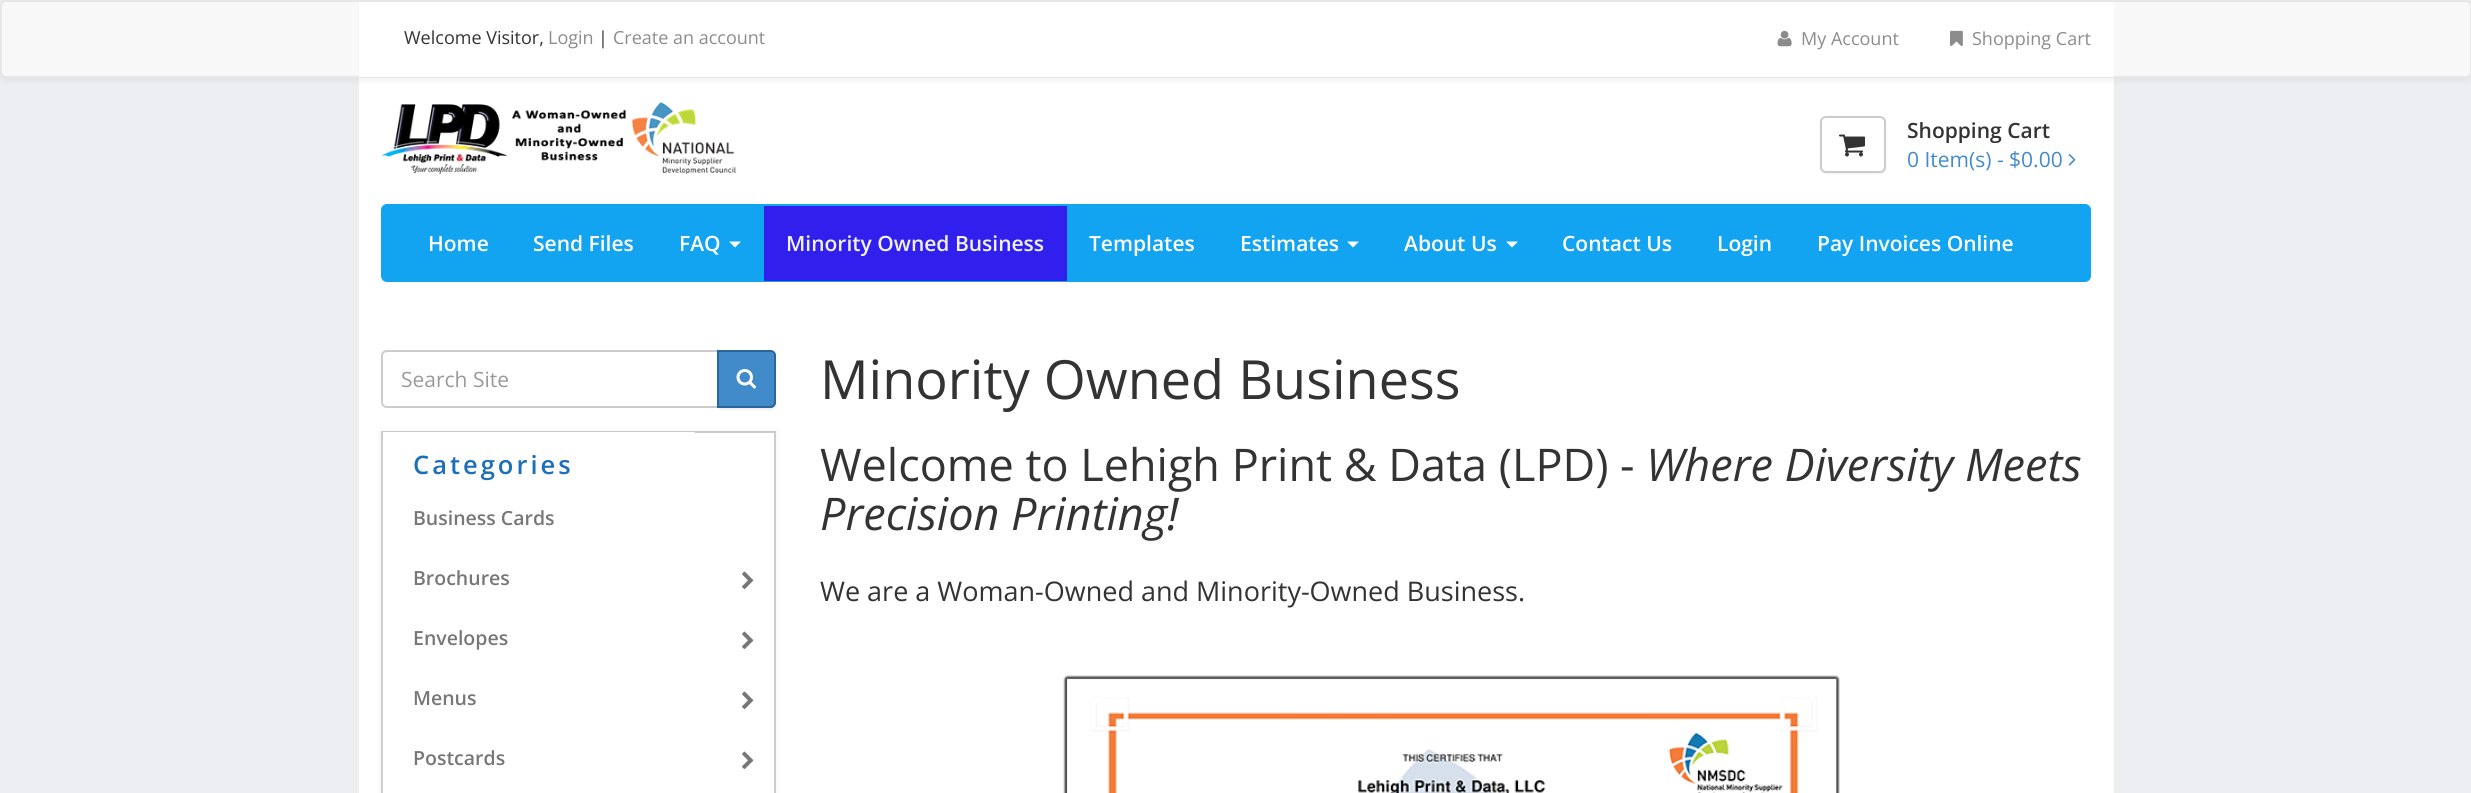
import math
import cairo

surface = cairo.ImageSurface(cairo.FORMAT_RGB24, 2471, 793)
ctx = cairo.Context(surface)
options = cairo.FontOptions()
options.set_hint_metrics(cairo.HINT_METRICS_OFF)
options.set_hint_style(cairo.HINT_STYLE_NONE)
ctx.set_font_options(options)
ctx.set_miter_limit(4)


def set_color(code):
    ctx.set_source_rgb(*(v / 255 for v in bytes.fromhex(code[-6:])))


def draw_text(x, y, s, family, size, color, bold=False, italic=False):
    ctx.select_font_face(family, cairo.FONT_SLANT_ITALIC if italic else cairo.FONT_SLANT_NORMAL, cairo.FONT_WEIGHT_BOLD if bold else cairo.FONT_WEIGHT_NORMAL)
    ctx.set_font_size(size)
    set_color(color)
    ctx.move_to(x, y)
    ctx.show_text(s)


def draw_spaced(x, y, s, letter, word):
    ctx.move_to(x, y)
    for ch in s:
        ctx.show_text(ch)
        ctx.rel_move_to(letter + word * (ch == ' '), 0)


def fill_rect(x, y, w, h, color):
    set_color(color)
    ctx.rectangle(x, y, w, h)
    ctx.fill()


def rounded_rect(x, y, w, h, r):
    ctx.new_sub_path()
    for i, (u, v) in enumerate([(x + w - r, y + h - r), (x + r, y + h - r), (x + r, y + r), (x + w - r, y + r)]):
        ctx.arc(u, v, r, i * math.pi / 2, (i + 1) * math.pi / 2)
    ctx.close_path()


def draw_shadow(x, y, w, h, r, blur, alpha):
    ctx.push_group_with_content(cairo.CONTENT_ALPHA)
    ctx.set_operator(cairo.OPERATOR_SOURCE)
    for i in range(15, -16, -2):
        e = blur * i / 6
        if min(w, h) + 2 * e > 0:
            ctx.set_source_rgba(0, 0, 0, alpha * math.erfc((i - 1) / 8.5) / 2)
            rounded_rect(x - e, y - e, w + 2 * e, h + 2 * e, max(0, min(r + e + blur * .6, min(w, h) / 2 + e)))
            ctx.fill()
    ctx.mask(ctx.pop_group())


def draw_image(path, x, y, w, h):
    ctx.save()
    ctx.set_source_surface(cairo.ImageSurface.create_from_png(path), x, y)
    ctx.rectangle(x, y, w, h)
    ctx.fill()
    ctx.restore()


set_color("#edeef2")
ctx.paint()
fill_rect(359, 78, 1755, 96, "#ffffff")
set_color("#000000")
draw_shadow(0, 2, 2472, 78, 6, 4, 0.07)
set_color("#f8f8f8")
rounded_rect(1, 1, 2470, 76, 5)
ctx.fill_preserve()
set_color("#e7e7e7")
ctx.stroke()
fill_rect(359, 2, 1755, 75, "#ffffff")
draw_text(404, 44, "Welcome Visitor,", "Open Sans", 18, "#333333")
draw_text(548, 44, "Login", "Open Sans", 18, "#8c8c8c")
draw_text(598, 44, "|", "Open Sans", 18, "#333333")
draw_text(613, 44, "Create an account", "Open Sans", 18, "#8c8c8c")
draw_image("assets/img1.png", 1777, 30, 15, 17)
draw_text(1801, 45, "My Account", "Open Sans", 18, "#8c8c8c")
draw_image("assets/img2.png", 1950, 30, 13, 16)
draw_text(1972, 45, "Shopping Cart", "Open Sans", 18, "#8c8c8c")
draw_image("assets/img3.png", 381, 102, 356, 72)
set_color("#000000")
draw_shadow(1820, 117, 66, 57, 6, 1, 0.07)
set_color("#ffffff")
rounded_rect(1821, 117, 64, 55, 5)
ctx.fill_preserve()
set_color("#cccccc")
ctx.stroke()
draw_image("assets/img4.png", 1839, 134, 26, 23)
draw_text(1907, 138, "Shopping Cart", "Open Sans SemiBold", 21, "#333333")
draw_text(1907, 167, "0 Item(s) - $0.00", "Open Sans", 21, "#428bca")
draw_image("assets/img5.png", 2068, 154, 8, 12)
fill_rect(359, 174, 1755, 619, "#ffffff")
set_color("#12a3f1")
rounded_rect(382, 205, 1708, 76, 5)
ctx.fill_preserve()
ctx.stroke()
draw_text(428, 251, "Home", "Open Sans SemiBold", 21, "#ffffff")
draw_text(533, 251, "Send Files", "Open Sans SemiBold", 21, "#ffffff")
draw_text(679, 251, "FAQ", "Open Sans SemiBold", 21, "#ffffff")
ctx.new_path()
ctx.move_to(729, 241.5)
ctx.line_to(741, 241.5)
ctx.line_to(735, 247.5)
ctx.close_path()
ctx.fill()
fill_rect(764, 206, 303, 75, "#311fee")
draw_text(786, 251, "Minority Owned Business", "Open Sans SemiBold", 21, "#f2f2f2")
draw_text(1089, 251, "Templates", "Open Sans SemiBold", 21, "#ffffff")
draw_text(1240, 251, "Estimates", "Open Sans SemiBold", 21, "#ffffff")
ctx.new_path()
ctx.move_to(1347, 241.5)
ctx.line_to(1359, 241.5)
ctx.line_to(1353, 247.5)
ctx.close_path()
ctx.fill()
draw_text(1404, 251, "About Us", "Open Sans SemiBold", 21, "#ffffff")
ctx.new_path()
ctx.move_to(1506, 241.5)
ctx.line_to(1518, 241.5)
ctx.line_to(1512, 247.5)
ctx.close_path()
ctx.fill()
draw_text(1562, 251, "Contact Us", "Open Sans SemiBold", 21, "#ffffff")
draw_text(1717, 251, "Login", "Open Sans SemiBold", 21, "#ffffff")
draw_text(1817, 251, "Pay Invoices Online", "Open Sans SemiBold", 21, "#ffffff")
ctx.new_path()
ctx.move_to(387, 351)
ctx.line_to(718, 351)
ctx.line_to(718, 407)
ctx.line_to(387, 407)
ctx.curve_to(384, 407, 382, 405, 382, 402)
ctx.line_to(382, 356)
ctx.curve_to(382, 353, 384, 351, 387, 351)
ctx.close_path()
set_color("#cccccc")
ctx.stroke()
draw_text(401, 387, "Search Site", "Open Sans", 21, "#999999")
set_color("#000000")
draw_shadow(717, 351, 59, 59, 6, 1, 0.07)
set_color("#428bca")
ctx.new_path()
ctx.move_to(717, 350)
ctx.line_to(770, 350)
ctx.curve_to(773.5, 350, 776, 352.5, 776, 356)
ctx.line_to(776, 402)
ctx.curve_to(776, 405.5, 773.5, 408, 770, 408)
ctx.line_to(717, 408)
ctx.close_path()
ctx.fill()
set_color("#5e9cd2")
ctx.new_path()
ctx.move_to(719, 351)
ctx.line_to(719, 352)
ctx.line_to(770, 352)
ctx.curve_to(772, 352, 774, 355, 774, 357)
ctx.curve_to(774, 354, 772, 351, 769, 351)
ctx.close_path()
ctx.fill()
ctx.new_path()
ctx.move_to(718, 351)
ctx.line_to(770, 351)
ctx.curve_to(773, 351, 775, 353, 775, 356)
ctx.line_to(775, 402)
ctx.curve_to(775, 405, 773, 407, 770, 407)
ctx.line_to(718, 407)
ctx.close_path()
set_color("#2b669a")
ctx.stroke()
draw_image("assets/img6.png", 736, 369, 20, 20)
set_color("#000000")
draw_shadow(381, 432, 395, 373, 0, 4, 0.07)
set_color("#ffffff")
ctx.rectangle(382, 432, 393, 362)
ctx.fill_preserve()
set_color("#cccccc")
ctx.stroke()
fill_rect(383, 432, 312, 1, "#ffffff")
ctx.select_font_face("Open Sans SemiBold")
ctx.set_font_size(25.5)
set_color("#1c6fb8")
draw_spaced(413, 474, "Categories", 3, 0)
draw_text(413, 525, "Business Cards", "Open Sans SemiBold", 19.5, "#777777")
draw_text(413, 585, "Brochures", "Open Sans SemiBold", 19.5, "#777777")
draw_image("assets/img7.png", 742, 571, 12, 18)
draw_text(413, 645, "Envelopes", "Open Sans SemiBold", 19.5, "#777777")
draw_image("assets/img7.png", 742, 631, 12, 18)
draw_text(413, 705, "Menus", "Open Sans SemiBold", 19.5, "#777777")
draw_image("assets/img7.png", 742, 691, 12, 18)
draw_text(413, 765, "Postcards", "Open Sans SemiBold", 19.5, "#777777")
draw_image("assets/img7.png", 742, 751, 12, 18)
draw_text(820, 399, "Minority Owned Business", "Open Sans", 54, "#333333")
draw_text(820, 481, "Welcome to Lehigh Print & Data (LPD) -", "Open Sans", 45, "#333333")
draw_text(1646, 481, "Where Diversity Meets", "Open Sans", 45, "#333333", italic=True)
draw_text(820, 530, "Precision Printing!", "Open Sans", 45, "#333333", italic=True)
draw_text(820, 601, "We are a Woman-Owned and Minority-Owned Business.", "Open Sans", 27, "#333333")
draw_image("assets/img8.png", 1063, 675, 777, 118)
surface.write_to_png("output.png")
